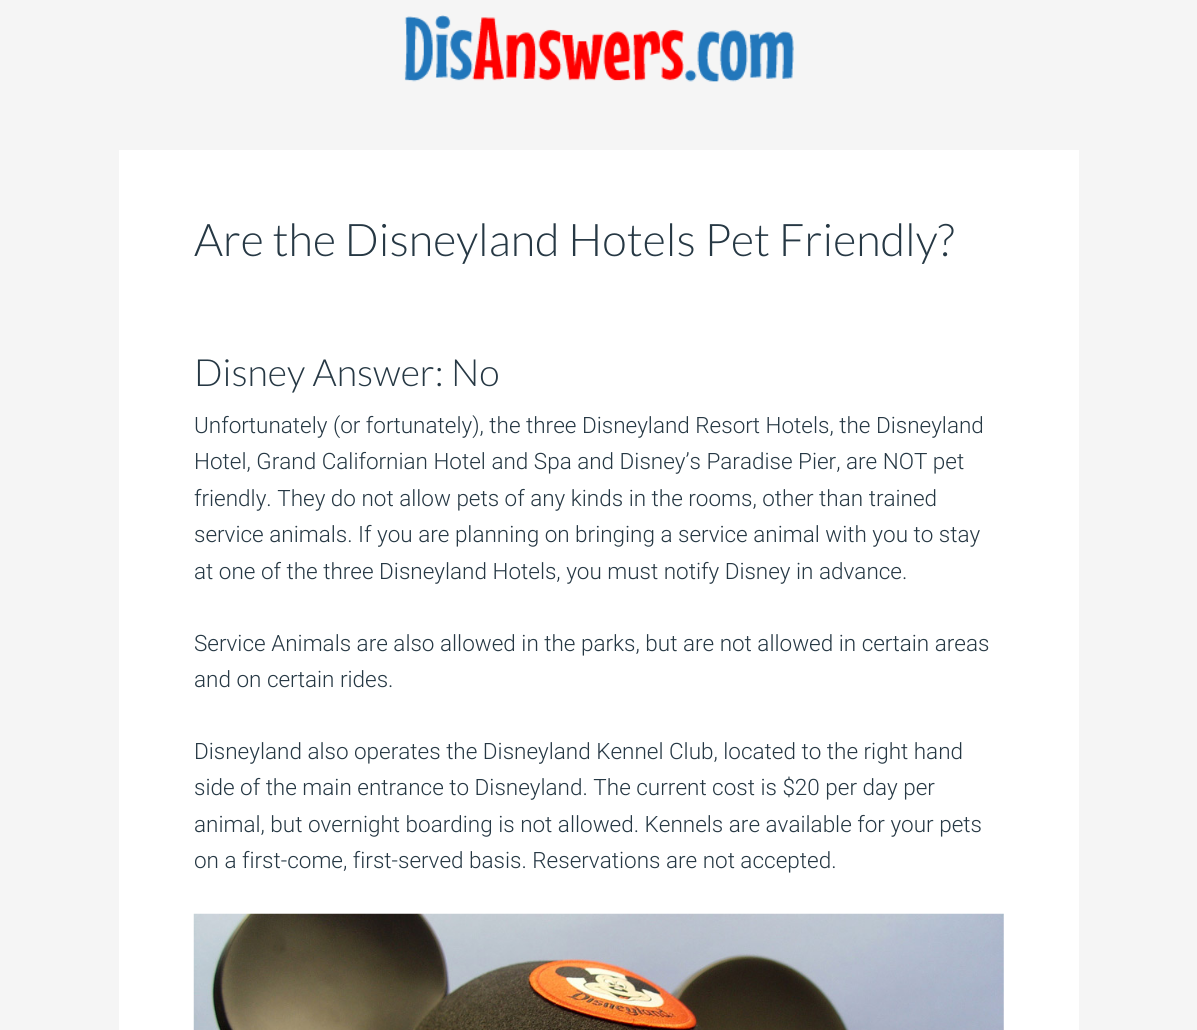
import math
import cairo

surface = cairo.ImageSurface(cairo.FORMAT_RGB24, 1197, 1030)
ctx = cairo.Context(surface)
options = cairo.FontOptions()
options.set_hint_metrics(cairo.HINT_METRICS_OFF)
options.set_hint_style(cairo.HINT_STYLE_NONE)
ctx.set_font_options(options)
ctx.set_miter_limit(4)


def set_color(code):
    ctx.set_source_rgb(*(v / 255 for v in bytes.fromhex(code[-6:])))


def draw_text(x, y, s, family, size, color, bold=False, italic=False):
    ctx.select_font_face(family, cairo.FONT_SLANT_ITALIC if italic else cairo.FONT_SLANT_NORMAL, cairo.FONT_WEIGHT_BOLD if bold else cairo.FONT_WEIGHT_NORMAL)
    ctx.set_font_size(size)
    set_color(color)
    ctx.move_to(x, y)
    ctx.show_text(s)


def fill_rect(x, y, w, h, color):
    set_color(color)
    ctx.rectangle(x, y, w, h)
    ctx.fill()


def draw_image(path, x, y, w, h):
    ctx.save()
    ctx.set_source_surface(cairo.ImageSurface.create_from_png(path), x, y)
    ctx.rectangle(x, y, w, h)
    ctx.fill()
    ctx.restore()


set_color("#f5f5f5")
ctx.paint()
draw_image("assets/img1.png", 404, 15, 390, 67)
fill_rect(119, 150, 960, 880, "#ffffff")
draw_text(194, 256, "Are the Disneyland Hotels Pet Friendly?", "Lato Light", 45, "#263844")
draw_text(194, 386, "Disney Answer: No", "Lato Light", 37.5, "#263844")
draw_text(194, 433, "Unfortunately (or fortunately), the three Disneyland Resort Hotels, the Disneyland", "Roboto Light", 22.5, "#263844")
draw_text(194, 469, "Hotel, Grand Californian Hotel and Spa and Disney’s Paradise Pier, are NOT pet", "Roboto Light", 22.5, "#263844")
draw_text(194, 506, "friendly. They do not allow pets of any kinds in the rooms, other than trained", "Roboto Light", 22.5, "#263844")
draw_text(194, 542, "service animals. If you are planning on bringing a service animal with you to stay", "Roboto Light", 22.5, "#263844")
draw_text(194, 579, "at one of the three Disneyland Hotels, you must notify Disney in advance.", "Roboto Light", 22.5, "#263844")
draw_text(194, 651, "Service Animals are also allowed in the parks, but are not allowed in certain areas", "Roboto Light", 22.5, "#263844")
draw_text(194, 687, "and on certain rides.", "Roboto Light", 22.5, "#263844")
draw_text(194, 759, "Disneyland also operates the Disneyland Kennel Club, located to the right hand", "Roboto Light", 22.5, "#263844")
draw_text(194, 795, "side of the main entrance to Disneyland. The current cost is $20 per day per", "Roboto Light", 22.5, "#263844")
draw_text(194, 832, "animal, but overnight boarding is not allowed. Kennels are available for your pets", "Roboto Light", 22.5, "#263844")
draw_text(194, 868, "on a first-come, first-served basis. Reservations are not accepted.", "Roboto Light", 22.5, "#263844")
draw_image("assets/img2.png", 193, 913, 811, 117)
surface.write_to_png("output.png")
